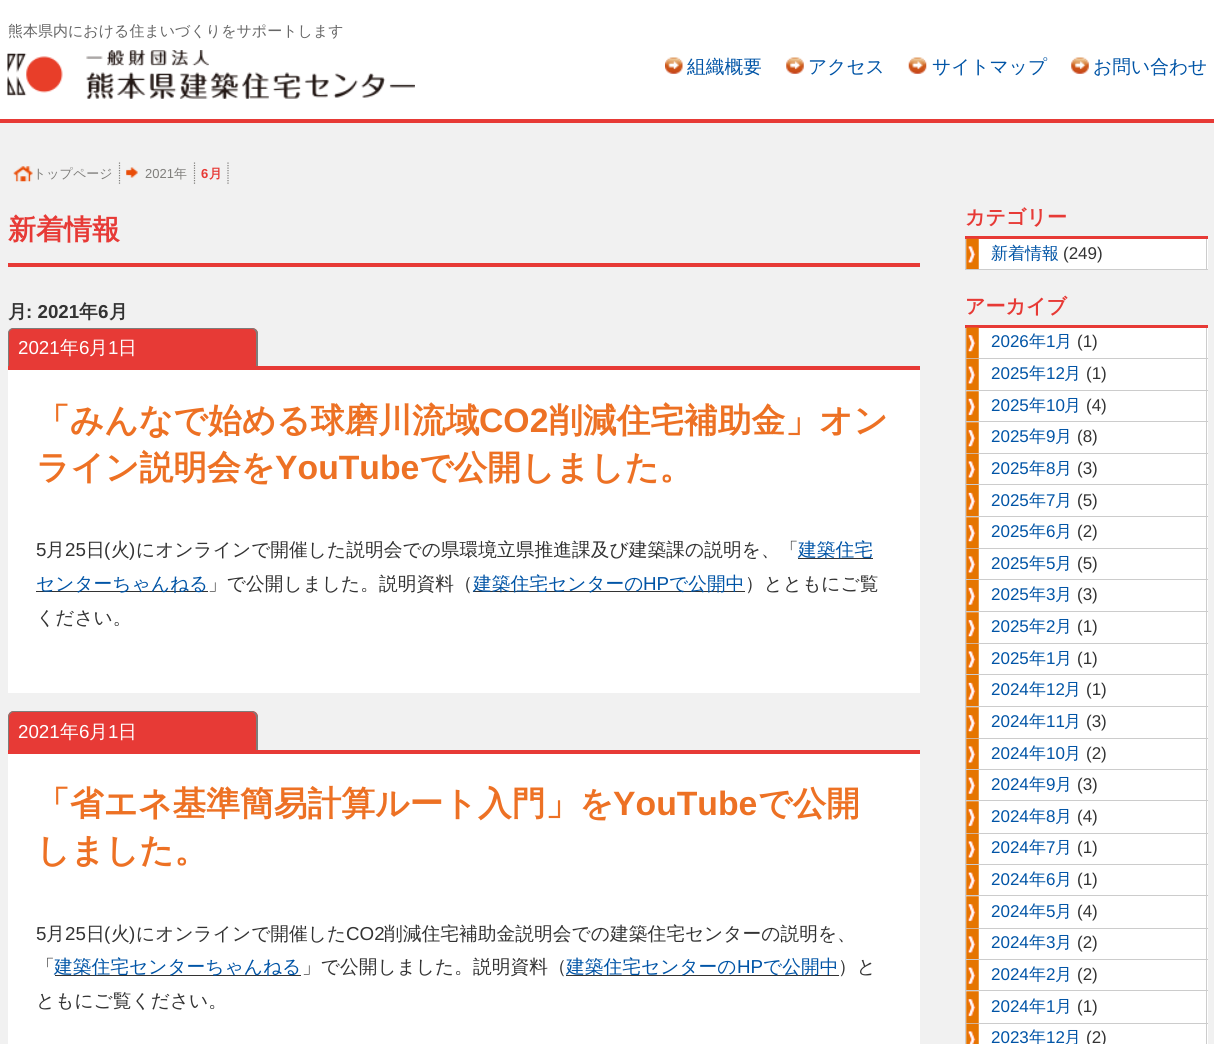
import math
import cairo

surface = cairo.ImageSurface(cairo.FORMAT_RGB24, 1214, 1044)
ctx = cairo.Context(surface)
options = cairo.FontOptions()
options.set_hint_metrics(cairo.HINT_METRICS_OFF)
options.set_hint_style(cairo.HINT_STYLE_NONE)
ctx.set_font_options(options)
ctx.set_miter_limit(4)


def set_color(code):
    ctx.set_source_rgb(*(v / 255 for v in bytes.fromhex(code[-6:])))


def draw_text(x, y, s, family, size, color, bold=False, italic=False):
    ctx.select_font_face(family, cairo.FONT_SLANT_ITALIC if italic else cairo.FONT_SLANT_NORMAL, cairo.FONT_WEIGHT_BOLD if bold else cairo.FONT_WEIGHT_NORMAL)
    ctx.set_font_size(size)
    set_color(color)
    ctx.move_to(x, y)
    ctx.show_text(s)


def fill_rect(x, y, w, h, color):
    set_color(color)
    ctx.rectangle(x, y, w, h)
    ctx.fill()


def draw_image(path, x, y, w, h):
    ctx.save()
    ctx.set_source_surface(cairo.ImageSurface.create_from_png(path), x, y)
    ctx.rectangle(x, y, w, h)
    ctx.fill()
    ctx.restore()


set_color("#f1f1f1")
ctx.paint()
fill_rect(0, 0, 1214, 119, "#ffffff")
fill_rect(0, 119, 1214, 4, "#e73a36")
draw_text(8, 36, "熊本県内における住まいづくりをサポートします", "WenQuanYi Zen Hei Medium", 15, "#666666")
draw_image("assets/img1.png", 7, 50, 408, 49)
draw_image("assets/img2.png", 665, 57, 18, 17)
draw_text(687, 73, "組織概要", "WenQuanYi Zen Hei Medium", 18.75, "#0054a6")
draw_image("assets/img3.png", 786, 57, 18, 17)
draw_text(808, 73, "アクセス", "WenQuanYi Zen Hei Medium", 18.75, "#0054a6")
draw_image("assets/img4.png", 908, 57, 19, 17)
draw_text(932, 73, "サイトマップ", "WenQuanYi Zen Hei Medium", 18.75, "#0054a6")
draw_image("assets/img3.png", 1071, 57, 18, 17)
draw_text(1093, 73, "お問い合わせ", "WenQuanYi Zen Hei Medium", 18.75, "#0054a6")
ctx.new_path()
ctx.move_to(119.5, 162.5)
ctx.line_to(119.5, 185)
set_color("#7e7d7a")
ctx.set_line_width(1.2)
ctx.set_dash([1.25, 1.25])
ctx.stroke()
draw_image("assets/img5.png", 13, 166, 20, 16)
draw_text(33, 178, "トップページ", "WenQuanYi Zen Hei Medium", 13, "#7e7d7a")
ctx.new_path()
ctx.move_to(194.5, 162.5)
ctx.line_to(194.5, 185)
ctx.stroke()
draw_image("assets/img6.png", 126, 167, 12, 11)
draw_text(145, 178, "2021", "Liberation Sans", 13, "#7e7d7a")
draw_text(174, 178, "年", "WenQuanYi Zen Hei Medium", 13, "#7e7d7a")
ctx.new_path()
ctx.move_to(228, 162.5)
ctx.line_to(228, 185)
ctx.stroke()
draw_text(201, 178, "6", "Liberation Sans", 13, "#e73a36", bold=True)
draw_text(209, 178, "月", "WenQuanYi Zen Hei", 13, "#e73a36", bold=True)
fill_rect(8, 263, 912, 4, "#e73a36")
draw_text(8, 239, "新着情報", "WenQuanYi Zen Hei", 28, "#e73a36", bold=True)
draw_text(8, 318, "月", "WenQuanYi Zen Hei", 18.75, "#333333", bold=True)
draw_text(26, 318, ": 2021", "Liberation Sans", 18.75, "#333333", bold=True)
draw_text(79, 318, "年", "WenQuanYi Zen Hei", 18.75, "#333333", bold=True)
draw_text(98, 318, "6", "Liberation Sans", 18.75, "#333333", bold=True)
draw_text(109, 318, "月", "WenQuanYi Zen Hei", 18.75, "#333333", bold=True)
fill_rect(8, 366, 912, 4, "#e73a36")
ctx.new_path()
ctx.move_to(14, 328)
ctx.line_to(252, 328)
ctx.curve_to(255.5, 328, 258, 330.5, 258, 334)
ctx.line_to(258, 366)
ctx.line_to(8, 366)
ctx.line_to(8, 334)
ctx.curve_to(8, 330.5, 10.5, 328, 14, 328)
ctx.close_path()
ctx.fill()
set_color("#7e7d7a")
ctx.set_fill_rule(cairo.FILL_RULE_EVEN_ODD)
ctx.new_path()
ctx.move_to(14, 328)
ctx.line_to(251, 328)
ctx.curve_to(255, 328, 258, 330, 258, 334)
ctx.line_to(258, 366)
ctx.line_to(8, 366)
ctx.line_to(8, 334)
ctx.curve_to(8, 330, 10, 328, 14, 328)
ctx.close_path()
ctx.move_to(14, 329)
ctx.line_to(251, 329)
ctx.curve_to(254, 329, 256, 331, 256, 334)
ctx.line_to(256, 366)
ctx.line_to(9, 366)
ctx.line_to(9, 334)
ctx.curve_to(9, 331, 11, 329, 14, 329)
ctx.close_path()
ctx.fill()
draw_text(18, 354, "2021", "Liberation Sans", 18.75, "#ffffff")
draw_text(60, 354, "年", "WenQuanYi Zen Hei Medium", 18.75, "#ffffff")
draw_text(79, 354, "6", "Liberation Sans", 18.75, "#ffffff")
draw_text(89, 354, "月", "WenQuanYi Zen Hei Medium", 18.75, "#ffffff")
draw_text(108, 354, "1", "Liberation Sans", 18.75, "#ffffff")
draw_text(118, 354, "日", "WenQuanYi Zen Hei Medium", 18.75, "#ffffff")
fill_rect(8, 370, 912, 323, "#ffffff")
draw_text(36, 432, "「みんなで始める球磨川流域", "WenQuanYi Zen Hei", 33.75, "#ed7124", bold=True)
draw_text(479, 432, "CO2", "Liberation Sans", 33.75, "#ed7124", bold=True)
draw_text(549, 432, "削減住宅補助金」オン", "WenQuanYi Zen Hei", 33.75, "#ed7124", bold=True)
draw_text(36, 479, "ライン説明会を", "WenQuanYi Zen Hei", 33.75, "#ed7124", bold=True)
draw_text(275, 479, "YouTube", "Liberation Sans", 33.75, "#ed7124", bold=True)
draw_text(419, 479, "で公開しました。", "WenQuanYi Zen Hei", 33.75, "#ed7124", bold=True)
draw_text(36, 556, "5", "Liberation Sans", 18.75, "#333333")
draw_text(46, 556, "月", "WenQuanYi Zen Hei Medium", 18.75, "#333333")
draw_text(65, 556, "25", "Liberation Sans", 18.75, "#333333")
draw_text(86, 556, "日", "WenQuanYi Zen Hei Medium", 18.75, "#333333")
draw_text(104, 556, "(", "Liberation Sans", 18.75, "#333333")
draw_text(111, 556, "火", "WenQuanYi Zen Hei Medium", 18.75, "#333333")
draw_text(129, 556, ")", "Liberation Sans", 18.75, "#333333")
draw_text(136, 556, "にオンラインで開催した説明会での県環境立県推進課及び建築課の説明を、「", "WenQuanYi Zen Hei Medium", 18.75, "#333333")
fill_rect(798, 558, 75, 1, "#333333")
draw_text(798, 556, "建築住宅", "WenQuanYi Zen Hei Medium", 18.75, "#0054a6")
fill_rect(36, 591, 172, 1, "#333333")
draw_text(36, 590, "センターちゃんねる", "WenQuanYi Zen Hei Medium", 18.75, "#0054a6")
draw_text(208, 590, "」で公開しました。説明資料（", "WenQuanYi Zen Hei Medium", 18.75, "#333333")
fill_rect(473, 591, 272, 1, "#333333")
draw_text(473, 590, "建築住宅センターの", "WenQuanYi Zen Hei Medium", 18.75, "#0054a6")
draw_text(643, 590, "HP", "Liberation Sans", 18.75, "#0054a6")
draw_text(669, 590, "で公開中", "WenQuanYi Zen Hei Medium", 18.75, "#0054a6")
draw_text(745, 590, "）とともにご覧", "WenQuanYi Zen Hei Medium", 18.75, "#333333")
draw_text(36, 624, "ください。", "WenQuanYi Zen Hei Medium", 18.75, "#333333")
fill_rect(8, 750, 912, 4, "#e73a36")
ctx.new_path()
ctx.move_to(14, 711)
ctx.line_to(252, 711)
ctx.curve_to(255.5, 711, 258, 713.5, 258, 717)
ctx.line_to(258, 750)
ctx.line_to(8, 750)
ctx.line_to(8, 717)
ctx.curve_to(8, 713.5, 10.5, 711, 14, 711)
ctx.close_path()
ctx.fill()
set_color("#7e7d7a")
ctx.new_path()
ctx.move_to(14, 711)
ctx.line_to(251, 711)
ctx.curve_to(255, 711, 258, 714, 258, 718)
ctx.line_to(258, 750)
ctx.line_to(8, 750)
ctx.line_to(8, 718)
ctx.curve_to(8, 714, 10, 711, 14, 711)
ctx.close_path()
ctx.move_to(14, 712)
ctx.line_to(251, 712)
ctx.curve_to(254, 712, 256, 715, 256, 718)
ctx.line_to(256, 750)
ctx.line_to(9, 750)
ctx.line_to(9, 718)
ctx.curve_to(9, 715, 11, 712, 14, 712)
ctx.close_path()
ctx.fill()
draw_text(18, 738, "2021", "Liberation Sans", 18.75, "#ffffff")
draw_text(60, 738, "年", "WenQuanYi Zen Hei Medium", 18.75, "#ffffff")
draw_text(79, 738, "6", "Liberation Sans", 18.75, "#ffffff")
draw_text(89, 738, "月", "WenQuanYi Zen Hei Medium", 18.75, "#ffffff")
draw_text(108, 738, "1", "Liberation Sans", 18.75, "#ffffff")
draw_text(118, 738, "日", "WenQuanYi Zen Hei Medium", 18.75, "#ffffff")
fill_rect(8, 754, 912, 290, "#ffffff")
draw_text(36, 815, "「省エネ基準簡易計算ルート入門」を", "WenQuanYi Zen Hei", 33.75, "#ed7124", bold=True)
draw_text(613, 815, "YouTube", "Liberation Sans", 33.75, "#ed7124", bold=True)
draw_text(758, 815, "で公開", "WenQuanYi Zen Hei", 33.75, "#ed7124", bold=True)
draw_text(36, 862, "しました。", "WenQuanYi Zen Hei", 33.75, "#ed7124", bold=True)
draw_text(36, 940, "5", "Liberation Sans", 18.75, "#333333")
draw_text(46, 940, "月", "WenQuanYi Zen Hei Medium", 18.75, "#333333")
draw_text(65, 940, "25", "Liberation Sans", 18.75, "#333333")
draw_text(86, 940, "日", "WenQuanYi Zen Hei Medium", 18.75, "#333333")
draw_text(104, 940, "(", "Liberation Sans", 18.75, "#333333")
draw_text(111, 940, "火", "WenQuanYi Zen Hei Medium", 18.75, "#333333")
draw_text(129, 940, ")", "Liberation Sans", 18.75, "#333333")
draw_text(136, 940, "にオンラインで開催した", "WenQuanYi Zen Hei Medium", 18.75, "#333333")
draw_text(346, 940, "CO2", "Liberation Sans", 18.75, "#333333")
draw_text(384, 940, "削減住宅補助金説明会での建築住宅センターの説明を、", "WenQuanYi Zen Hei Medium", 18.75, "#333333")
draw_text(36, 973, "「", "WenQuanYi Zen Hei Medium", 18.75, "#333333")
fill_rect(55, 975, 246, 1, "#333333")
draw_text(54, 973, "建築住宅センターちゃんねる", "WenQuanYi Zen Hei Medium", 18.75, "#0054a6")
draw_text(302, 973, "」で公開しました。説明資料（", "WenQuanYi Zen Hei Medium", 18.75, "#333333")
fill_rect(566, 975, 273, 1, "#333333")
draw_text(566, 973, "建築住宅センターの", "WenQuanYi Zen Hei Medium", 18.75, "#0054a6")
draw_text(737, 973, "HP", "Liberation Sans", 18.75, "#0054a6")
draw_text(763, 973, "で公開中", "WenQuanYi Zen Hei Medium", 18.75, "#0054a6")
draw_text(838, 973, "）と", "WenQuanYi Zen Hei Medium", 18.75, "#333333")
draw_text(36, 1007, "ともにご覧ください。", "WenQuanYi Zen Hei Medium", 18.75, "#333333")
fill_rect(965, 236, 243, 3, "#e73a36")
draw_text(965, 224, "カテゴリー", "WenQuanYi Zen Hei", 20, "#e73a36", bold=True)
fill_rect(966, 239, 242, 30, "#ffffff")
draw_image("assets/img7.png", 966, 238, 13, 31)
fill_rect(1206, 239, 1, 31, "#cccccc")
fill_rect(965, 269, 243, 1, "#cccccc")
fill_rect(965, 239, 1, 31, "#cccccc")
draw_text(991, 259, "新着情報", "WenQuanYi Zen Hei Medium", 17, "#0054a6")
draw_text(1063, 259, "(249)", "Liberation Sans", 17, "#333333")
fill_rect(965, 325, 243, 3, "#e73a36")
draw_text(965, 313, "アーカイブ", "WenQuanYi Zen Hei", 20, "#e73a36", bold=True)
fill_rect(966, 328, 242, 30, "#ffffff")
draw_image("assets/img8.png", 966, 327, 13, 31)
fill_rect(1206, 328, 1, 31, "#cccccc")
fill_rect(965, 358, 243, 1, "#cccccc")
fill_rect(965, 328, 1, 31, "#cccccc")
draw_text(991, 347, "2026", "Liberation Sans", 17, "#0054a6")
draw_text(1029, 347, "年", "WenQuanYi Zen Hei Medium", 17, "#0054a6")
draw_text(1046, 347, "1", "Liberation Sans", 17, "#0054a6")
draw_text(1055, 347, "月", "WenQuanYi Zen Hei Medium", 17, "#0054a6")
draw_text(1077, 347, "(1)", "Liberation Sans", 17, "#333333")
fill_rect(966, 359, 242, 31, "#ffffff")
draw_image("assets/img9.png", 966, 358, 13, 32)
fill_rect(1206, 359, 1, 32, "#cccccc")
fill_rect(965, 390, 243, 1, "#cccccc")
fill_rect(965, 359, 1, 32, "#cccccc")
draw_text(991, 379, "2025", "Liberation Sans", 17, "#0054a6")
draw_text(1029, 379, "年", "WenQuanYi Zen Hei Medium", 17, "#0054a6")
draw_text(1046, 379, "12", "Liberation Sans", 17, "#0054a6")
draw_text(1064, 379, "月", "WenQuanYi Zen Hei Medium", 17, "#0054a6")
draw_text(1086, 379, "(1)", "Liberation Sans", 17, "#333333")
fill_rect(966, 391, 242, 62, "#ffffff")
draw_image("assets/img10.png", 966, 391, 13, 32)
fill_rect(1206, 391, 1, 63, "#cccccc")
fill_rect(965, 421, 243, 1, "#cccccc")
fill_rect(965, 391, 1, 32, "#cccccc")
draw_text(991, 411, "2025", "Liberation Sans", 17, "#0054a6")
draw_text(1029, 411, "年", "WenQuanYi Zen Hei Medium", 17, "#0054a6")
draw_text(1046, 411, "10", "Liberation Sans", 17, "#0054a6")
draw_text(1064, 411, "月", "WenQuanYi Zen Hei Medium", 17, "#0054a6")
draw_text(1086, 411, "(4)", "Liberation Sans", 17, "#333333")
draw_image("assets/img11.png", 966, 422, 13, 31)
fill_rect(965, 453, 243, 1, "#cccccc")
fill_rect(965, 423, 1, 31, "#cccccc")
draw_text(991, 442, "2025", "Liberation Sans", 17, "#0054a6")
draw_text(1029, 442, "年", "WenQuanYi Zen Hei Medium", 17, "#0054a6")
draw_text(1046, 442, "9", "Liberation Sans", 17, "#0054a6")
draw_text(1055, 442, "月", "WenQuanYi Zen Hei Medium", 17, "#0054a6")
draw_text(1077, 442, "(8)", "Liberation Sans", 17, "#333333")
fill_rect(966, 454, 242, 30, "#ffffff")
draw_image("assets/img12.png", 966, 453, 13, 31)
fill_rect(1206, 454, 1, 31, "#cccccc")
fill_rect(965, 484, 243, 1, "#cccccc")
fill_rect(965, 454, 1, 31, "#cccccc")
draw_text(991, 474, "2025", "Liberation Sans", 17, "#0054a6")
draw_text(1029, 474, "年", "WenQuanYi Zen Hei Medium", 17, "#0054a6")
draw_text(1046, 474, "8", "Liberation Sans", 17, "#0054a6")
draw_text(1055, 474, "月", "WenQuanYi Zen Hei Medium", 17, "#0054a6")
draw_text(1077, 474, "(3)", "Liberation Sans", 17, "#333333")
fill_rect(966, 485, 242, 63, "#ffffff")
draw_image("assets/img13.png", 966, 485, 13, 33)
fill_rect(1206, 485, 1, 64, "#cccccc")
fill_rect(965, 516, 243, 1, "#cccccc")
fill_rect(965, 485, 1, 33, "#cccccc")
draw_text(991, 506, "2025", "Liberation Sans", 17, "#0054a6")
draw_text(1029, 506, "年", "WenQuanYi Zen Hei Medium", 17, "#0054a6")
draw_text(1046, 506, "7", "Liberation Sans", 17, "#0054a6")
draw_text(1055, 506, "月", "WenQuanYi Zen Hei Medium", 17, "#0054a6")
draw_text(1077, 506, "(5)", "Liberation Sans", 17, "#333333")
draw_image("assets/img11.png", 966, 517, 13, 31)
fill_rect(965, 548, 243, 1, "#cccccc")
fill_rect(965, 518, 1, 31, "#cccccc")
draw_text(991, 537, "2025", "Liberation Sans", 17, "#0054a6")
draw_text(1029, 537, "年", "WenQuanYi Zen Hei Medium", 17, "#0054a6")
draw_text(1046, 537, "6", "Liberation Sans", 17, "#0054a6")
draw_text(1055, 537, "月", "WenQuanYi Zen Hei Medium", 17, "#0054a6")
draw_text(1077, 537, "(2)", "Liberation Sans", 17, "#333333")
fill_rect(966, 549, 242, 30, "#ffffff")
draw_image("assets/img12.png", 966, 548, 13, 31)
fill_rect(1206, 549, 1, 31, "#cccccc")
fill_rect(965, 579, 243, 1, "#cccccc")
fill_rect(965, 549, 1, 31, "#cccccc")
draw_text(991, 569, "2025", "Liberation Sans", 17, "#0054a6")
draw_text(1029, 569, "年", "WenQuanYi Zen Hei Medium", 17, "#0054a6")
draw_text(1046, 569, "5", "Liberation Sans", 17, "#0054a6")
draw_text(1055, 569, "月", "WenQuanYi Zen Hei Medium", 17, "#0054a6")
draw_text(1077, 569, "(5)", "Liberation Sans", 17, "#333333")
fill_rect(966, 580, 242, 63, "#ffffff")
draw_image("assets/img13.png", 966, 580, 13, 33)
fill_rect(1206, 580, 1, 64, "#cccccc")
fill_rect(965, 611, 243, 1, "#cccccc")
fill_rect(965, 580, 1, 33, "#cccccc")
draw_text(991, 600, "2025", "Liberation Sans", 17, "#0054a6")
draw_text(1029, 600, "年", "WenQuanYi Zen Hei Medium", 17, "#0054a6")
draw_text(1046, 600, "3", "Liberation Sans", 17, "#0054a6")
draw_text(1055, 600, "月", "WenQuanYi Zen Hei Medium", 17, "#0054a6")
draw_text(1077, 600, "(3)", "Liberation Sans", 17, "#333333")
draw_image("assets/img11.png", 966, 612, 13, 31)
fill_rect(965, 643, 243, 1, "#cccccc")
fill_rect(965, 613, 1, 31, "#cccccc")
draw_text(991, 632, "2025", "Liberation Sans", 17, "#0054a6")
draw_text(1029, 632, "年", "WenQuanYi Zen Hei Medium", 17, "#0054a6")
draw_text(1046, 632, "2", "Liberation Sans", 17, "#0054a6")
draw_text(1055, 632, "月", "WenQuanYi Zen Hei Medium", 17, "#0054a6")
draw_text(1077, 632, "(1)", "Liberation Sans", 17, "#333333")
fill_rect(966, 644, 242, 30, "#ffffff")
draw_image("assets/img12.png", 966, 643, 13, 31)
fill_rect(1206, 644, 1, 31, "#cccccc")
fill_rect(965, 674, 243, 1, "#cccccc")
fill_rect(965, 644, 1, 31, "#cccccc")
draw_text(991, 664, "2025", "Liberation Sans", 17, "#0054a6")
draw_text(1029, 664, "年", "WenQuanYi Zen Hei Medium", 17, "#0054a6")
draw_text(1046, 664, "1", "Liberation Sans", 17, "#0054a6")
draw_text(1055, 664, "月", "WenQuanYi Zen Hei Medium", 17, "#0054a6")
draw_text(1077, 664, "(1)", "Liberation Sans", 17, "#333333")
fill_rect(966, 675, 242, 63, "#ffffff")
draw_image("assets/img13.png", 966, 675, 13, 33)
fill_rect(1206, 675, 1, 64, "#cccccc")
fill_rect(965, 706, 243, 1, "#cccccc")
fill_rect(965, 675, 1, 33, "#cccccc")
draw_text(991, 695, "2024", "Liberation Sans", 17, "#0054a6")
draw_text(1029, 695, "年", "WenQuanYi Zen Hei Medium", 17, "#0054a6")
draw_text(1046, 695, "12", "Liberation Sans", 17, "#0054a6")
draw_text(1064, 695, "月", "WenQuanYi Zen Hei Medium", 17, "#0054a6")
draw_text(1086, 695, "(1)", "Liberation Sans", 17, "#333333")
draw_image("assets/img11.png", 966, 707, 13, 31)
fill_rect(965, 738, 243, 1, "#cccccc")
fill_rect(965, 708, 1, 31, "#cccccc")
draw_text(991, 727, "2024", "Liberation Sans", 17, "#0054a6")
draw_text(1029, 727, "年", "WenQuanYi Zen Hei Medium", 17, "#0054a6")
draw_text(1046, 727, "11", "Liberation Sans", 17, "#0054a6")
draw_text(1064, 727, "月", "WenQuanYi Zen Hei Medium", 17, "#0054a6")
draw_text(1086, 727, "(3)", "Liberation Sans", 17, "#333333")
fill_rect(966, 739, 242, 30, "#ffffff")
draw_image("assets/img12.png", 966, 738, 13, 31)
fill_rect(1206, 739, 1, 31, "#cccccc")
fill_rect(965, 769, 243, 1, "#cccccc")
fill_rect(965, 739, 1, 31, "#cccccc")
draw_text(991, 759, "2024", "Liberation Sans", 17, "#0054a6")
draw_text(1029, 759, "年", "WenQuanYi Zen Hei Medium", 17, "#0054a6")
draw_text(1046, 759, "10", "Liberation Sans", 17, "#0054a6")
draw_text(1064, 759, "月", "WenQuanYi Zen Hei Medium", 17, "#0054a6")
draw_text(1086, 759, "(2)", "Liberation Sans", 17, "#333333")
fill_rect(966, 770, 242, 30, "#ffffff")
draw_image("assets/img14.png", 966, 770, 13, 30)
fill_rect(1206, 770, 1, 31, "#cccccc")
fill_rect(965, 800, 243, 1, "#cccccc")
fill_rect(965, 770, 1, 31, "#cccccc")
draw_text(991, 790, "2024", "Liberation Sans", 17, "#0054a6")
draw_text(1029, 790, "年", "WenQuanYi Zen Hei Medium", 17, "#0054a6")
draw_text(1046, 790, "9", "Liberation Sans", 17, "#0054a6")
draw_text(1055, 790, "月", "WenQuanYi Zen Hei Medium", 17, "#0054a6")
draw_text(1077, 790, "(3)", "Liberation Sans", 17, "#333333")
fill_rect(966, 801, 242, 32, "#ffffff")
draw_image("assets/img15.png", 966, 801, 13, 32)
fill_rect(1206, 801, 1, 33, "#cccccc")
fill_rect(965, 833, 243, 1, "#cccccc")
fill_rect(965, 801, 1, 33, "#cccccc")
draw_text(991, 822, "2024", "Liberation Sans", 17, "#0054a6")
draw_text(1029, 822, "年", "WenQuanYi Zen Hei Medium", 17, "#0054a6")
draw_text(1046, 822, "8", "Liberation Sans", 17, "#0054a6")
draw_text(1055, 822, "月", "WenQuanYi Zen Hei Medium", 17, "#0054a6")
draw_text(1077, 822, "(4)", "Liberation Sans", 17, "#333333")
fill_rect(966, 834, 242, 30, "#ffffff")
draw_image("assets/img12.png", 966, 833, 13, 31)
fill_rect(1206, 834, 1, 31, "#cccccc")
fill_rect(965, 864, 243, 1, "#cccccc")
fill_rect(965, 834, 1, 31, "#cccccc")
draw_text(991, 853, "2024", "Liberation Sans", 17, "#0054a6")
draw_text(1029, 853, "年", "WenQuanYi Zen Hei Medium", 17, "#0054a6")
draw_text(1046, 853, "7", "Liberation Sans", 17, "#0054a6")
draw_text(1055, 853, "月", "WenQuanYi Zen Hei Medium", 17, "#0054a6")
draw_text(1077, 853, "(1)", "Liberation Sans", 17, "#333333")
fill_rect(966, 865, 242, 30, "#ffffff")
draw_image("assets/img14.png", 966, 865, 13, 30)
fill_rect(1206, 865, 1, 31, "#cccccc")
fill_rect(965, 895, 243, 1, "#cccccc")
fill_rect(965, 865, 1, 31, "#cccccc")
draw_text(991, 885, "2024", "Liberation Sans", 17, "#0054a6")
draw_text(1029, 885, "年", "WenQuanYi Zen Hei Medium", 17, "#0054a6")
draw_text(1046, 885, "6", "Liberation Sans", 17, "#0054a6")
draw_text(1055, 885, "月", "WenQuanYi Zen Hei Medium", 17, "#0054a6")
draw_text(1077, 885, "(1)", "Liberation Sans", 17, "#333333")
fill_rect(966, 896, 242, 32, "#ffffff")
draw_image("assets/img15.png", 966, 896, 13, 32)
fill_rect(1206, 896, 1, 33, "#cccccc")
fill_rect(965, 928, 243, 1, "#cccccc")
fill_rect(965, 896, 1, 33, "#cccccc")
draw_text(991, 917, "2024", "Liberation Sans", 17, "#0054a6")
draw_text(1029, 917, "年", "WenQuanYi Zen Hei Medium", 17, "#0054a6")
draw_text(1046, 917, "5", "Liberation Sans", 17, "#0054a6")
draw_text(1055, 917, "月", "WenQuanYi Zen Hei Medium", 17, "#0054a6")
draw_text(1077, 917, "(4)", "Liberation Sans", 17, "#333333")
fill_rect(966, 929, 242, 30, "#ffffff")
draw_image("assets/img12.png", 966, 928, 13, 31)
fill_rect(1206, 929, 1, 31, "#cccccc")
fill_rect(965, 959, 243, 1, "#cccccc")
fill_rect(965, 929, 1, 31, "#cccccc")
draw_text(991, 948, "2024", "Liberation Sans", 17, "#0054a6")
draw_text(1029, 948, "年", "WenQuanYi Zen Hei Medium", 17, "#0054a6")
draw_text(1046, 948, "3", "Liberation Sans", 17, "#0054a6")
draw_text(1055, 948, "月", "WenQuanYi Zen Hei Medium", 17, "#0054a6")
draw_text(1077, 948, "(2)", "Liberation Sans", 17, "#333333")
fill_rect(966, 960, 242, 30, "#ffffff")
draw_image("assets/img14.png", 966, 960, 13, 30)
fill_rect(1206, 960, 1, 31, "#cccccc")
fill_rect(965, 990, 243, 1, "#cccccc")
fill_rect(965, 960, 1, 31, "#cccccc")
draw_text(991, 980, "2024", "Liberation Sans", 17, "#0054a6")
draw_text(1029, 980, "年", "WenQuanYi Zen Hei Medium", 17, "#0054a6")
draw_text(1046, 980, "2", "Liberation Sans", 17, "#0054a6")
draw_text(1055, 980, "月", "WenQuanYi Zen Hei Medium", 17, "#0054a6")
draw_text(1077, 980, "(2)", "Liberation Sans", 17, "#333333")
fill_rect(966, 991, 242, 32, "#ffffff")
draw_image("assets/img15.png", 966, 991, 13, 32)
fill_rect(1206, 991, 1, 33, "#cccccc")
fill_rect(965, 1023, 243, 1, "#cccccc")
fill_rect(965, 991, 1, 53, "#cccccc")
draw_text(991, 1012, "2024", "Liberation Sans", 17, "#0054a6")
draw_text(1029, 1012, "年", "WenQuanYi Zen Hei Medium", 17, "#0054a6")
draw_text(1046, 1012, "1", "Liberation Sans", 17, "#0054a6")
draw_text(1055, 1012, "月", "WenQuanYi Zen Hei Medium", 17, "#0054a6")
draw_text(1077, 1012, "(1)", "Liberation Sans", 17, "#333333")
fill_rect(966, 1024, 242, 20, "#ffffff")
draw_image("assets/img16.png", 966, 1023, 13, 21)
fill_rect(1206, 1024, 1, 20, "#cccccc")
draw_text(991, 1043, "2023", "Liberation Sans", 17, "#0054a6")
draw_text(1029, 1043, "年", "WenQuanYi Zen Hei Medium", 17, "#0054a6")
draw_text(1046, 1043, "12", "Liberation Sans", 17, "#0054a6")
draw_text(1064, 1043, "月", "WenQuanYi Zen Hei Medium", 17, "#0054a6")
draw_text(1086, 1043, "(2)", "Liberation Sans", 17, "#333333")
surface.write_to_png("output.png")
